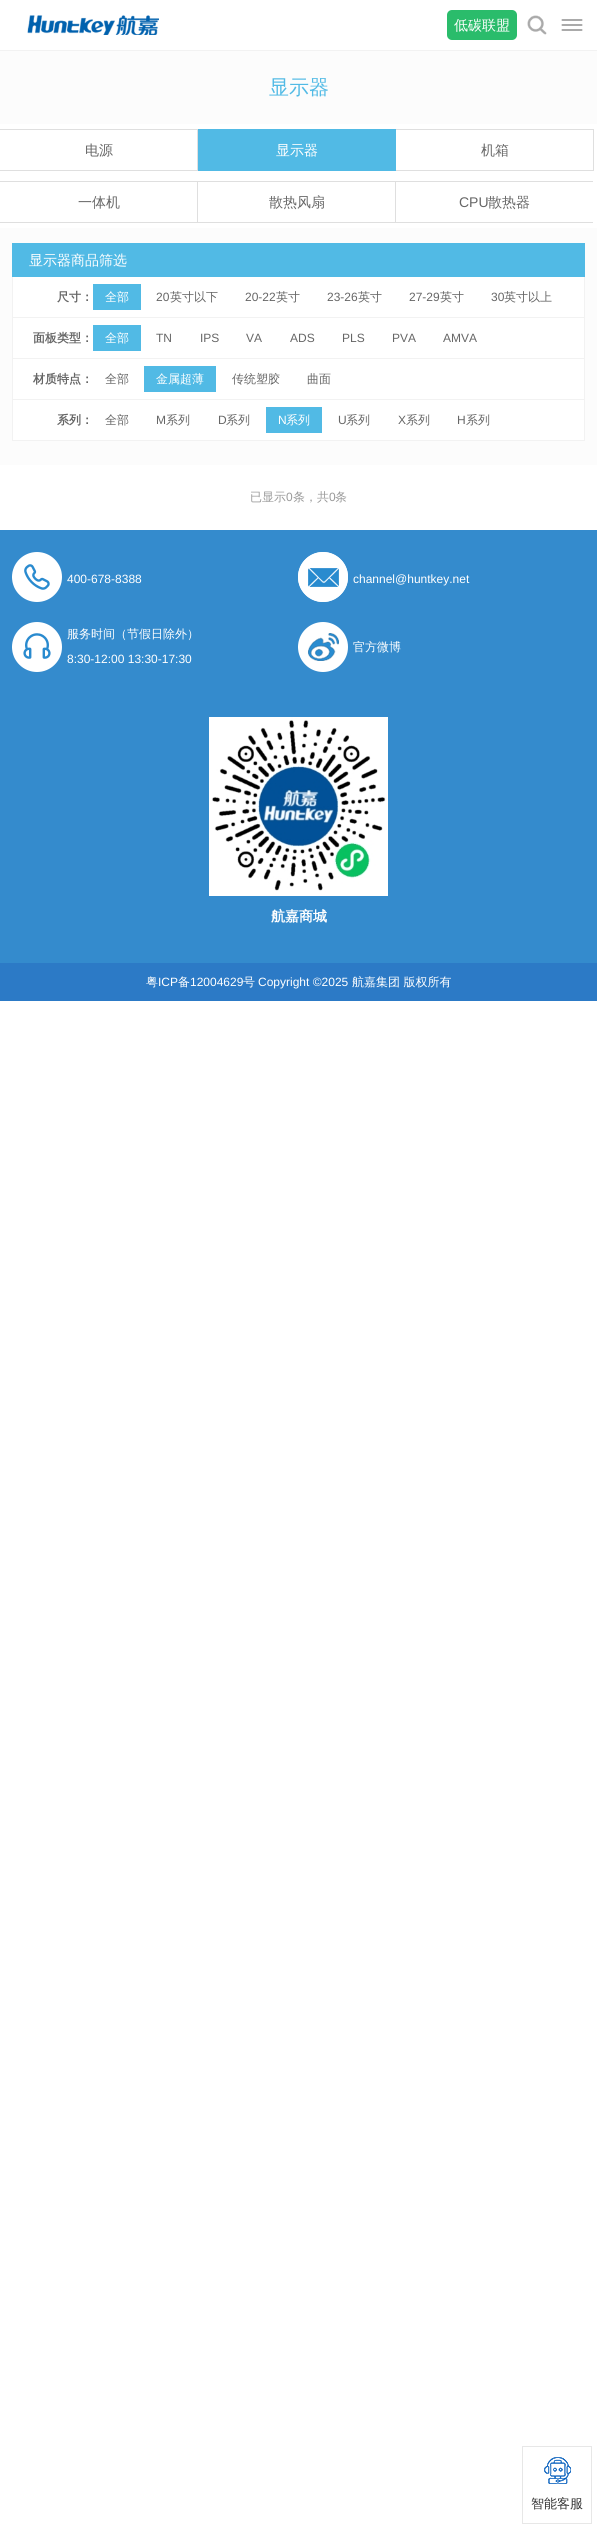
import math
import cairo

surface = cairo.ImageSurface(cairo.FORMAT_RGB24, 597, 2544)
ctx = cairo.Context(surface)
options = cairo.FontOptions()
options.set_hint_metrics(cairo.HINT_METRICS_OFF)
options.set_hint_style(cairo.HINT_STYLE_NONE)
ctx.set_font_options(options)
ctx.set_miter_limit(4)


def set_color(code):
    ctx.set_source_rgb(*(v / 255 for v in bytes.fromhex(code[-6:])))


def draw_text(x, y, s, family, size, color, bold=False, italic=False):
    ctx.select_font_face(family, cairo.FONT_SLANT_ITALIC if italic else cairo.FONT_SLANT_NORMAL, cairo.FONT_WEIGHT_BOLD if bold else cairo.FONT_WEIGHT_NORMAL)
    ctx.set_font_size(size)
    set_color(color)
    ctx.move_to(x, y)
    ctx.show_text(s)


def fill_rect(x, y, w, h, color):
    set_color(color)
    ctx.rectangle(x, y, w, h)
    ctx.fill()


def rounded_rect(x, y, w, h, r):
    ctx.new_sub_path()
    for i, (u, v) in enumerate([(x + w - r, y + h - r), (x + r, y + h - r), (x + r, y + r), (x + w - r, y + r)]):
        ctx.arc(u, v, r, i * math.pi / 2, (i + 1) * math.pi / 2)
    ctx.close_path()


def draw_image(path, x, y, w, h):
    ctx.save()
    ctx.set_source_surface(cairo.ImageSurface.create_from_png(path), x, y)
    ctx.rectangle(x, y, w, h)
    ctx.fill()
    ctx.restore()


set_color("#ffffff")
ctx.paint()
fill_rect(0, 50, 597, 1, "#f2f2f2")
draw_image("assets/img1.png", 27, 15, 132, 20)
set_color("#2abc6b")
rounded_rect(447, 10, 70, 30, 5)
ctx.fill()
draw_text(454, 30, "低碳联盟", "WenQuanYi Zen Hei Medium", 14, "#ffffff")
draw_image("assets/img2.png", 527, 15, 20, 20)
draw_image("assets/img3.png", 561, 19, 22, 12)
fill_rect(0, 51, 597, 414, "#fcfcfc")
draw_text(269, 94, "显示器", "WenQuanYi Zen Hei Medium", 20, "#51bae5")
fill_rect(0, 124, 597, 104, "#ffffff")
fill_rect(0, 129, 198, 1, "#dfdfdf")
fill_rect(197, 129, 1, 42, "#dfdfdf")
fill_rect(0, 170, 198, 1, "#dfdfdf")
draw_text(85, 155, "电源", "WenQuanYi Zen Hei Medium", 14, "#666666")
fill_rect(198, 129, 198, 42, "#51bae5")
draw_text(276, 155, "显示器", "WenQuanYi Zen Hei Medium", 14, "#ffffff")
fill_rect(396, 129, 198, 1, "#dfdfdf")
fill_rect(593, 129, 1, 42, "#dfdfdf")
fill_rect(396, 170, 198, 1, "#dfdfdf")
draw_text(481, 155, "机箱", "WenQuanYi Zen Hei Medium", 14, "#666666")
fill_rect(0, 181, 593, 1, "#dfdfdf")
fill_rect(197, 181, 1, 42, "#dfdfdf")
fill_rect(0, 222, 198, 1, "#dfdfdf")
draw_text(78, 207, "一体机", "WenQuanYi Zen Hei Medium", 14, "#666666")
fill_rect(395, 181, 1, 42, "#dfdfdf")
fill_rect(198, 222, 395, 1, "#dfdfdf")
draw_text(269, 207, "散热风扇", "WenQuanYi Zen Hei Medium", 14, "#666666")
draw_text(459, 207, "CPU", "Liberation Sans", 14, "#666666")
draw_text(488, 207, "散热器", "WenQuanYi Zen Hei Medium", 14, "#666666")
fill_rect(12, 243, 573, 34, "#51bae5")
draw_text(29, 265, "显示器商品筛选", "WenQuanYi Zen Hei Medium", 14, "#ffffff")
fill_rect(13, 277, 571, 163, "#ffffff")
fill_rect(584, 277, 1, 164, "#f2f2f2")
fill_rect(12, 277, 1, 164, "#f2f2f2")
fill_rect(13, 317, 571, 1, "#f2f2f2")
draw_text(57, 301, "尺寸：", "WenQuanYi Zen Hei", 12, "#666666", bold=True)
fill_rect(93, 284, 48, 26, "#51bae5")
draw_text(105, 301, "全部", "WenQuanYi Zen Hei Medium", 12, "#ffffff")
draw_text(156, 301, "20", "Liberation Sans", 12, "#666666")
draw_text(170, 301, "英寸以下", "WenQuanYi Zen Hei Medium", 12, "#666666")
draw_text(245, 301, "20-22", "Liberation Sans", 12, "#666666")
draw_text(276, 301, "英寸", "WenQuanYi Zen Hei Medium", 12, "#666666")
draw_text(327, 301, "23-26", "Liberation Sans", 12, "#666666")
draw_text(358, 301, "英寸", "WenQuanYi Zen Hei Medium", 12, "#666666")
draw_text(409, 301, "27-29", "Liberation Sans", 12, "#666666")
draw_text(440, 301, "英寸", "WenQuanYi Zen Hei Medium", 12, "#666666")
draw_text(491, 301, "30", "Liberation Sans", 12, "#666666")
draw_text(504, 301, "英寸以上", "WenQuanYi Zen Hei Medium", 12, "#666666")
fill_rect(13, 358, 571, 1, "#f2f2f2")
draw_text(33, 342, "面板类型：", "WenQuanYi Zen Hei", 12, "#666666", bold=True)
fill_rect(93, 325, 48, 26, "#51bae5")
draw_text(105, 342, "全部", "WenQuanYi Zen Hei Medium", 12, "#ffffff")
draw_text(156, 342, "TN", "Liberation Sans", 12, "#666666")
draw_text(200, 342, "IPS", "Liberation Sans", 12, "#666666")
draw_text(246, 342, "VA", "Liberation Sans", 12, "#666666")
draw_text(290, 342, "ADS", "Liberation Sans", 12, "#666666")
draw_text(342, 342, "PLS", "Liberation Sans", 12, "#666666")
draw_text(392, 342, "PVA", "Liberation Sans", 12, "#666666")
draw_text(443, 342, "AMVA", "Liberation Sans", 12, "#666666")
fill_rect(13, 399, 571, 1, "#f2f2f2")
draw_text(33, 383, "材质特点：", "WenQuanYi Zen Hei", 12, "#666666", bold=True)
draw_text(105, 383, "全部", "WenQuanYi Zen Hei Medium", 12, "#666666")
fill_rect(144, 366, 72, 26, "#51bae5")
draw_text(156, 383, "金属超薄", "WenQuanYi Zen Hei Medium", 12, "#ffffff")
draw_text(232, 383, "传统塑胶", "WenQuanYi Zen Hei Medium", 12, "#666666")
draw_text(307, 383, "曲面", "WenQuanYi Zen Hei Medium", 12, "#666666")
fill_rect(13, 440, 571, 1, "#f2f2f2")
draw_text(57, 424, "系列：", "WenQuanYi Zen Hei", 12, "#666666", bold=True)
draw_text(105, 424, "全部", "WenQuanYi Zen Hei Medium", 12, "#666666")
draw_text(156, 424, "M", "Liberation Sans", 12, "#666666")
draw_text(166, 424, "系列", "WenQuanYi Zen Hei Medium", 12, "#666666")
draw_text(218, 424, "D", "Liberation Sans", 12, "#666666")
draw_text(226, 424, "系列", "WenQuanYi Zen Hei Medium", 12, "#666666")
fill_rect(266, 407, 56, 26, "#51bae5")
draw_text(278, 424, "N", "Liberation Sans", 12, "#ffffff")
draw_text(286, 424, "系列", "WenQuanYi Zen Hei Medium", 12, "#ffffff")
draw_text(338, 424, "U", "Liberation Sans", 12, "#666666")
draw_text(346, 424, "系列", "WenQuanYi Zen Hei Medium", 12, "#666666")
draw_text(398, 424, "X", "Liberation Sans", 12, "#666666")
draw_text(406, 424, "系列", "WenQuanYi Zen Hei Medium", 12, "#666666")
draw_text(457, 424, "H", "Liberation Sans", 12, "#666666")
draw_text(466, 424, "系列", "WenQuanYi Zen Hei Medium", 12, "#666666")
draw_text(250, 501, "已显示", "WenQuanYi Zen Hei Medium", 12, "#999999")
draw_text(286, 501, "0", "Liberation Sans", 12, "#999999")
draw_text(293, 501, "条，共", "WenQuanYi Zen Hei Medium", 12, "#999999")
draw_text(329, 501, "0", "Liberation Sans", 12, "#999999")
draw_text(335, 501, "条", "WenQuanYi Zen Hei Medium", 12, "#999999")
fill_rect(0, 530, 597, 433, "#348bcd")
draw_image("assets/img4.png", 12, 552, 50, 50)
draw_text(67, 583, "400-678-8388", "Liberation Sans", 12, "#ffffff")
draw_image("assets/img5.png", 298, 552, 50, 50)
draw_text(353, 583, "channel@huntkey.net", "Liberation Sans", 12, "#ffffff")
draw_image("assets/img6.png", 12, 622, 50, 50)
draw_text(67, 638, "服务时间（节假日除外）", "WenQuanYi Zen Hei Medium", 12, "#ffffff")
draw_text(67, 663, "8:30-12:00 13:30-17:30", "Liberation Sans", 12, "#ffffff")
draw_image("assets/img7.png", 298, 622, 50, 50)
draw_text(353, 651, "官方微博", "WenQuanYi Zen Hei Medium", 12, "#ffffff")
draw_image("assets/img8.png", 209, 717, 179, 179)
draw_text(271, 921, "航嘉商城", "WenQuanYi Zen Hei", 14, "#ffffff", bold=True)
fill_rect(0, 963, 597, 38, "#2c7ac6")
draw_text(146, 986, "粤", "WenQuanYi Zen Hei Medium", 12, "#ffffff")
draw_text(158, 986, "ICP", "Liberation Sans", 12, "#ffffff")
draw_text(178, 986, "备", "WenQuanYi Zen Hei Medium", 12, "#ffffff")
draw_text(190, 986, "12004629", "Liberation Sans", 12, "#ffffff")
draw_text(243, 986, "号", "WenQuanYi Zen Hei Medium", 12, "#ffffff")
draw_text(258, 986, "Copyright ©2025", "Liberation Sans", 12, "#ffffff")
draw_text(352, 986, "航嘉集团 版权所有", "WenQuanYi Zen Hei Medium", 12, "#ffffff")
ctx.rectangle(522.5, 2446.5, 69, 77)
set_color("#e7e7e7")
ctx.set_line_width(1)
ctx.stroke()
draw_image("assets/img9.png", 544, 2457, 27, 27)
draw_text(531, 2508, "智能客服", "WenQuanYi Zen Hei Medium", 13, "#333333")
surface.write_to_png("output.png")
